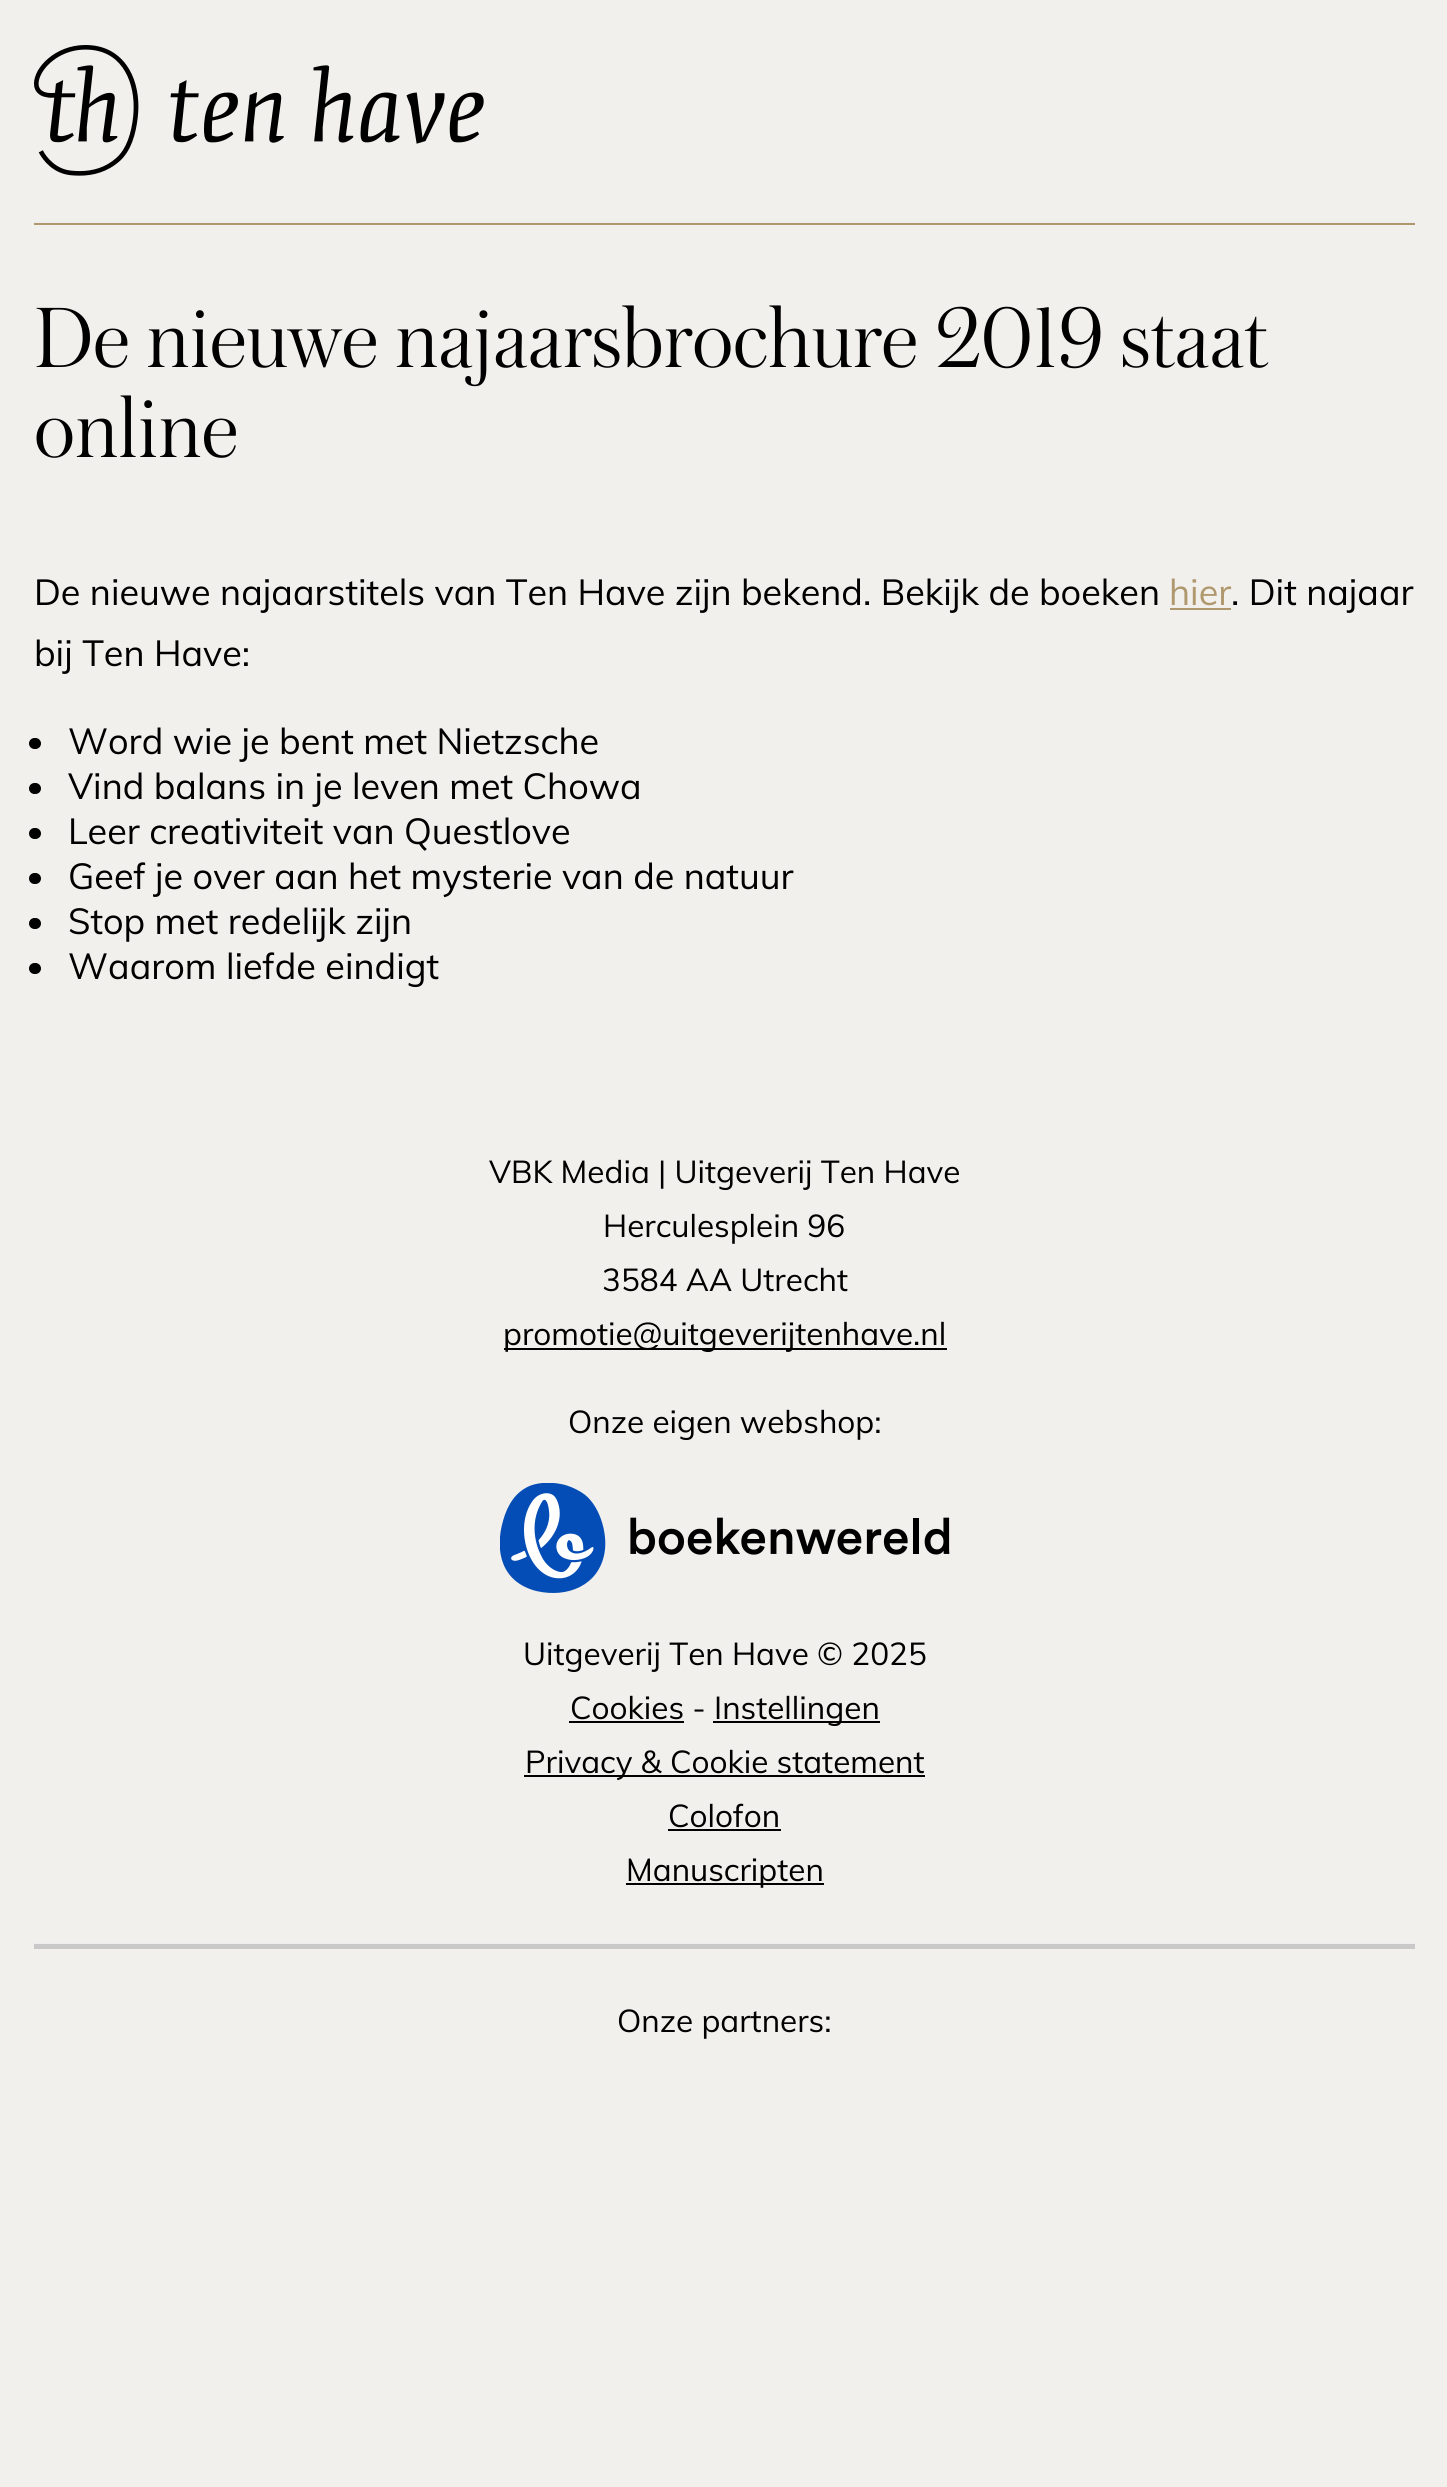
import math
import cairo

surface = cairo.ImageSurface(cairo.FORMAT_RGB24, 1447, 2487)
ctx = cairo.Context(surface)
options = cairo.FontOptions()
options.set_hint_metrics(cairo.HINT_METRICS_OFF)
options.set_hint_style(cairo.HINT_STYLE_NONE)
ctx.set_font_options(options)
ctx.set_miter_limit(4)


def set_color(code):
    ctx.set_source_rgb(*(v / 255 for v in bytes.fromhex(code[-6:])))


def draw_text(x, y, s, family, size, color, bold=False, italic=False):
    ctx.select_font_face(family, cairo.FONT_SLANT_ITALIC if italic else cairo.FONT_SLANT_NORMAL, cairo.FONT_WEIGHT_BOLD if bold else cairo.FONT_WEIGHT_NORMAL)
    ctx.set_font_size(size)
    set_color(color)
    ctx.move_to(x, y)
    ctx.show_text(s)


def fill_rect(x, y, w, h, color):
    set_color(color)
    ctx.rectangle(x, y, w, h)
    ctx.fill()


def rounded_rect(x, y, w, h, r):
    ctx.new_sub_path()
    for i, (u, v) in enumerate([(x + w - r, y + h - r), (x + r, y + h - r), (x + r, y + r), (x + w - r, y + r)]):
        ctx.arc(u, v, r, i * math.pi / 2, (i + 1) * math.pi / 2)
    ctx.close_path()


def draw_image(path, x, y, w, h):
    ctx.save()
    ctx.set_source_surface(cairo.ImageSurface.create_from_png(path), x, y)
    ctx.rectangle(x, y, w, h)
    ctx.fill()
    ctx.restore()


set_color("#f2f0ec")
ctx.paint()
draw_image("assets/img1.png", 34, 45, 450, 131)
fill_rect(34, 221, 1381, 2, "#eeeeee")
fill_rect(34, 223, 1381, 2, "#af986d")
draw_text(34, 367, "De nieuwe najaarsbrochure 2019 staat", "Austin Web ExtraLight", 90, "#000000")
draw_text(34, 457, "online", "Austin Web ExtraLight", 90, "#000000")
draw_text(34, 605, "De nieuwe najaarstitels van Ten Have zijn bekend. Bekijk de boeken", "Muli", 36, "#000000")
draw_text(1169, 605, "hier", "Muli", 36, "#af986d")
fill_rect(1170, 608, 61, 2, "#af986d")
draw_text(1231, 605, ". Dit najaar", "Muli", 36, "#000000")
draw_text(34, 666, "bij Ten Have:", "Muli", 36, "#000000")
rounded_rect(29, 738, 12, 11, 5.5)
ctx.fill()
draw_text(68, 754, "Word wie je bent met Nietzsche", "Muli", 36, "#000000")
rounded_rect(29, 783, 12, 11, 5.5)
ctx.fill()
draw_text(68, 799, "Vind balans in je leven met Chowa", "Muli", 36, "#000000")
rounded_rect(29, 828, 12, 11, 5.5)
ctx.fill()
draw_text(68, 844, "Leer creativiteit van Questlove", "Muli", 36, "#000000")
rounded_rect(29, 873, 12, 11, 5.5)
ctx.fill()
draw_text(68, 889, "Geef je over aan het mysterie van de natuur", "Muli", 36, "#000000")
rounded_rect(29, 918, 12, 11, 5.5)
ctx.fill()
draw_text(68, 934, "Stop met redelijk zijn", "Muli", 36, "#000000")
rounded_rect(29, 963, 12, 11, 5.5)
ctx.fill()
draw_text(68, 979, "Waarom liefde eindigt", "Muli", 36, "#000000")
draw_text(489, 1183, "VBK Media | Uitgeverij Ten Have", "Muli", 31.5, "#000000")
draw_text(603, 1237, "Herculesplein 96", "Muli", 31.5, "#000000")
draw_text(602, 1291, "3584 AA Utrecht", "Muli", 31.5, "#000000")
fill_rect(504, 1348, 443, 2, "#000000")
draw_text(503, 1345, "promotie@uitgeverijtenhave.nl", "Muli", 31.5, "#000000")
draw_text(568, 1433, "Onze eigen webshop:", "Muli", 31.5, "#000000")
draw_image("assets/img2.png", 500, 1483, 450, 110)
draw_text(523, 1665, "Uitgeverij Ten Have © 2025", "Muli", 31.5, "#000000")
draw_text(570, 1719, "Cookies -", "Muli", 31.5, "#000000")
fill_rect(569, 1721, 115, 2, "#000000")
fill_rect(713, 1721, 167, 2, "#000000")
draw_text(714, 1719, "Instellingen", "Muli", 31.5, "#000000")
fill_rect(524, 1775, 401, 2, "#000000")
draw_text(525, 1773, "Privacy & Cookie statement", "Muli", 31.5, "#000000")
draw_text(668, 1827, "Colofon", "Muli", 31.5, "#000000")
fill_rect(668, 1829, 113, 2, "#000000")
fill_rect(626, 1883, 198, 2, "#000000")
draw_text(626, 1881, "Manuscripten", "Muli", 31.5, "#000000")
fill_rect(34, 1942, 1381, 2, "#eeeeee")
fill_rect(34, 1944, 1381, 5, "#c9c9c9")
draw_text(617, 2032, "Onze partners:", "Muli", 31.5, "#000000")
surface.write_to_png("output.png")
